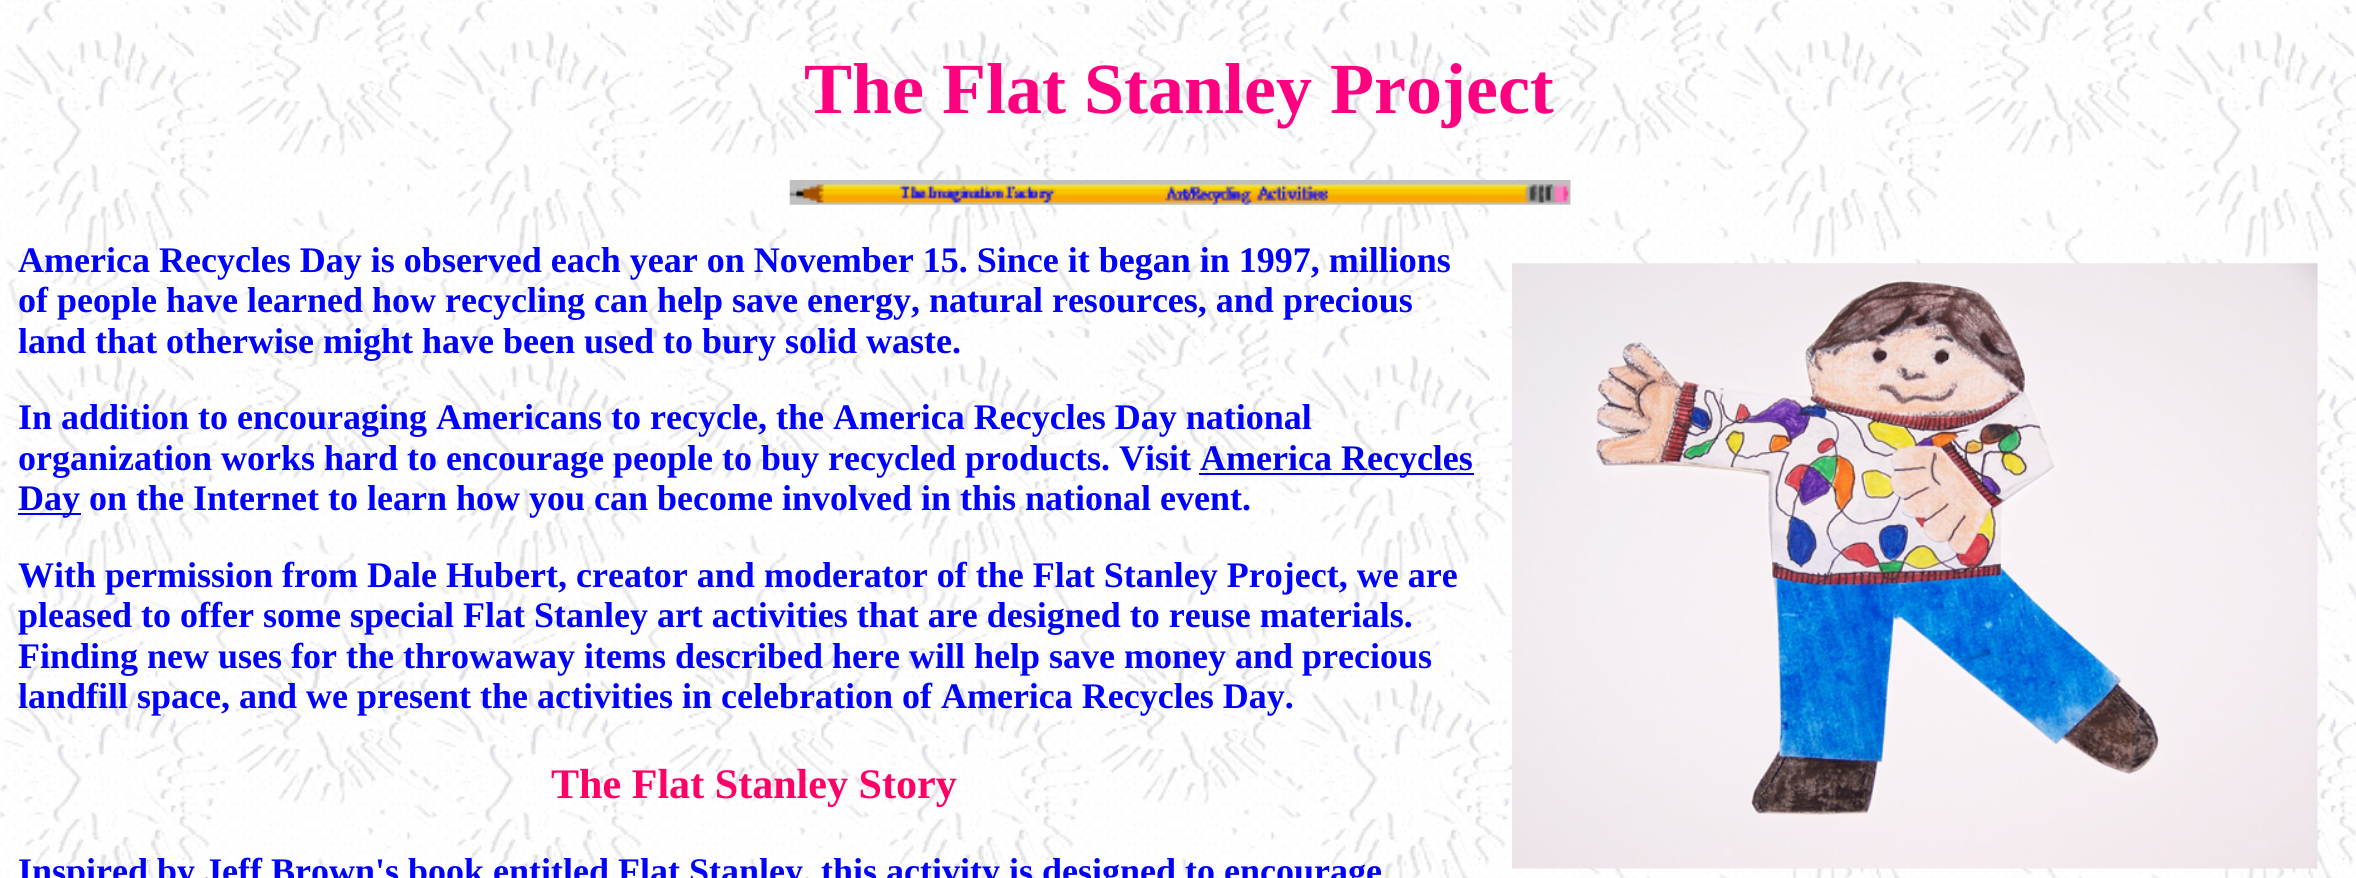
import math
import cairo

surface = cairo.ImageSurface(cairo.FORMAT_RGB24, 2356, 878)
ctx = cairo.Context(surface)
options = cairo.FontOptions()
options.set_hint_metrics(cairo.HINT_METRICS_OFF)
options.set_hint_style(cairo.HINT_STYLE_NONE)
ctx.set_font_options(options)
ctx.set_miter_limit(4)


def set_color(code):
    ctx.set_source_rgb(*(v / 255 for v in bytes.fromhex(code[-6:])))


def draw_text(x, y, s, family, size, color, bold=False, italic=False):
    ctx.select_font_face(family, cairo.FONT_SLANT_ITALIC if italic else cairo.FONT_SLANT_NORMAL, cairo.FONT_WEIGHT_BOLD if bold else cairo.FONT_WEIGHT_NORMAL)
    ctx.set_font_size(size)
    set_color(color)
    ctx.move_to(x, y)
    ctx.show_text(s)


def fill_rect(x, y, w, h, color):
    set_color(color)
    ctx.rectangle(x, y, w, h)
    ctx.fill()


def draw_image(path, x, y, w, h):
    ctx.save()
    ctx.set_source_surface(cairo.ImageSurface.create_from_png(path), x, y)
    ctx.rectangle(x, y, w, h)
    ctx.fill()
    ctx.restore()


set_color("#ffffff")
ctx.paint()
draw_image("assets/img1.png", 0, 0, 2356, 878)
draw_text(804, 113, "The Flat Stanley Project", "Liberation Serif", 72, "#ff0080", bold=True)
draw_image("assets/img2.png", 789, 180, 782, 25)
draw_text(18, 272, "America Recycles Day is observed each year on November 15. Since it began in 1997, millions", "Liberation Serif", 36, "#0000ff", bold=True)
draw_image("assets/img3.png", 1512, 263, 806, 606)
draw_text(18, 312, "of people have learned how recycling can help save energy, natural resources, and precious", "Liberation Serif", 36, "#0000ff", bold=True)
draw_text(18, 353, "land that otherwise might have been used to bury solid waste.", "Liberation Serif", 36, "#0000ff", bold=True)
draw_text(18, 429, "In addition to encouraging Americans to recycle, the America Recycles Day national", "Liberation Serif", 36, "#0000ff", bold=True)
draw_text(18, 470, "organization works hard to encourage people to buy recycled products. Visit", "Liberation Serif", 36, "#0000ff", bold=True)
fill_rect(1199, 473, 275, 2, "#0000ee")
draw_text(1200, 470, "America Recycles", "Liberation Serif", 36, "#0000ee", bold=True)
fill_rect(18, 513, 63, 2, "#0000ee")
draw_text(18, 510, "Day", "Liberation Serif", 36, "#0000ee", bold=True)
draw_text(89, 510, "on the Internet to learn how you can become involved in this national event.", "Liberation Serif", 36, "#0000ff", bold=True)
draw_text(18, 587, "With permission from Dale Hubert, creator and moderator of the Flat Stanley Project, we are", "Liberation Serif", 36, "#0000ff", bold=True)
draw_text(18, 627, "pleased to offer some special Flat Stanley art activities that are designed to reuse materials.", "Liberation Serif", 36, "#0000ff", bold=True)
draw_text(18, 668, "Finding new uses for the throwaway items described here will help save money and precious", "Liberation Serif", 36, "#0000ff", bold=True)
draw_text(18, 708, "landfill space, and we present the activities in celebration of America Recycles Day.", "Liberation Serif", 36, "#0000ff", bold=True)
draw_text(551, 798, "The Flat Stanley Story", "Liberation Serif", 42.1, "#ff0066", bold=True)
draw_text(18, 883, "Inspired by Jeff Brown's book entitled Flat Stanley, this activity is designed to encourage", "Liberation Serif", 36, "#0000ff", bold=True)
surface.write_to_png("output.png")
